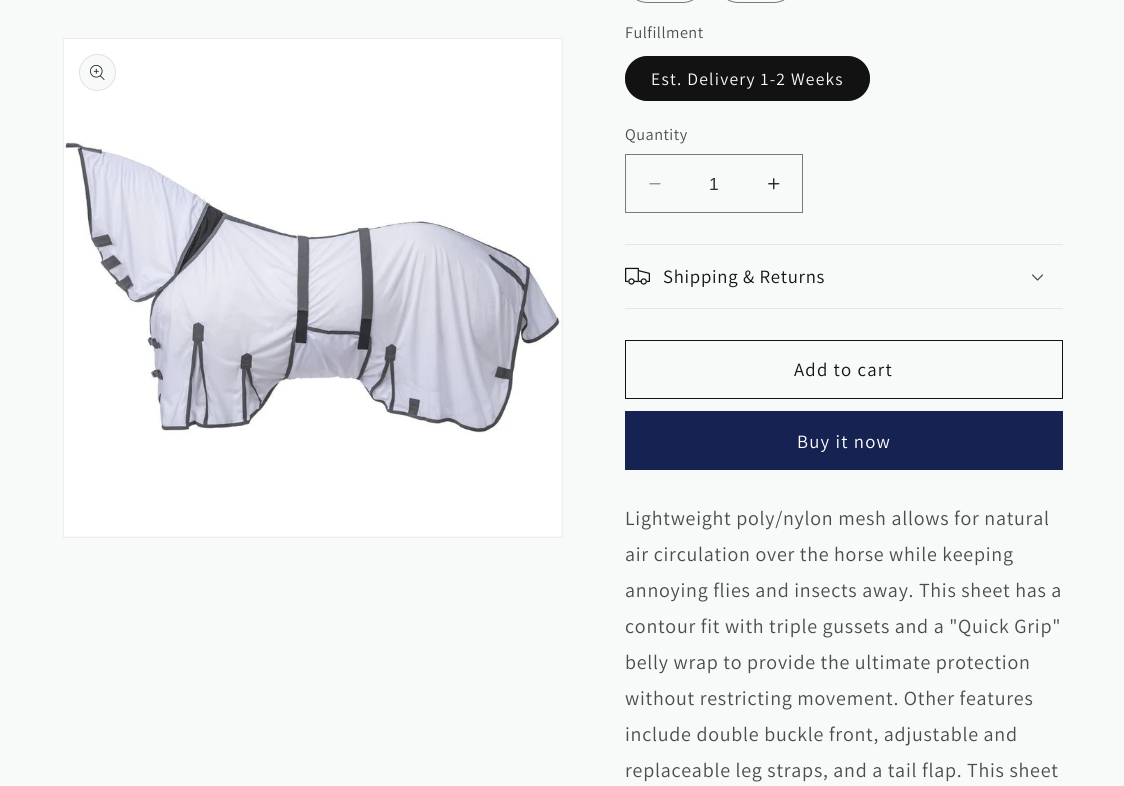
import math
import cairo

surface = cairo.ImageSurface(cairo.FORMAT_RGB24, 1124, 786)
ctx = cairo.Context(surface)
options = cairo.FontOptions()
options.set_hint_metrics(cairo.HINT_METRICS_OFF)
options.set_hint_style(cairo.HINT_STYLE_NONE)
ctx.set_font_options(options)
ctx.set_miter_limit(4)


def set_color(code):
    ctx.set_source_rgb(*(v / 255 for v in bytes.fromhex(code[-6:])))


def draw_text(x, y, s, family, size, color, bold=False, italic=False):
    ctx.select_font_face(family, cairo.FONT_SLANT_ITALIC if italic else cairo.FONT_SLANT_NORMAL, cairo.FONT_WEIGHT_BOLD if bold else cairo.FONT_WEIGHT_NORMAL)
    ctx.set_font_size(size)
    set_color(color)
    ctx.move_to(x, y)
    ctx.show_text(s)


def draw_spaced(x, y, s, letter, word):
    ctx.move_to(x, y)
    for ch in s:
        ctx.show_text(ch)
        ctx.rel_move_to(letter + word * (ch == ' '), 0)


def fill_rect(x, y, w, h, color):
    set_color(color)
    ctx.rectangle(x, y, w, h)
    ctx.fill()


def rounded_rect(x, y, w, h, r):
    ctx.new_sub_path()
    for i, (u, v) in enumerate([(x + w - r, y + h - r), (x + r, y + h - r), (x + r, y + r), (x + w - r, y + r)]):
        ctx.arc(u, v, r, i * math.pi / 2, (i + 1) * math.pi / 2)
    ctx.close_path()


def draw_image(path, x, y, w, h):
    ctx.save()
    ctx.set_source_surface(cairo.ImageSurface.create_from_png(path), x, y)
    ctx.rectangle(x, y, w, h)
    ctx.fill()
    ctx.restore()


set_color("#f8f9f9")
ctx.paint()
ctx.rectangle(63.5, 38.5, 499, 499)
set_color("#eceded")
ctx.set_line_width(1)
ctx.stroke()
draw_image("assets/img1.png", 64, 39, 497, 497)
set_color("#f8f9f9")
ctx.arc(97.5, 72.5, 18.5, 0, 2 * math.pi)
ctx.fill()
ctx.arc(97.5, 72.5, 18, 0, 2 * math.pi)
ctx.set_source_rgba(0.071, 0.071, 0.071, 0.1)
ctx.stroke()
draw_image("assets/img2.png", 90, 65, 15, 15)
rounded_rect(625.5, -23.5, 79, 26, 22)
set_color("#7a7a7a")
ctx.stroke()
rounded_rect(716.5, -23.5, 79, 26, 22)
ctx.stroke()
ctx.select_font_face("Assistant")
ctx.set_font_size(16.25)
set_color("#4c4c4c")
draw_spaced(625, 38, "Fulfillment", 0.5, 0)
set_color("#121212")
rounded_rect(625, 56, 245, 45, 22.5)
ctx.fill()
rounded_rect(625.5, 56.5, 244, 44, 22)
ctx.set_source_rgba(0.071, 0.071, 0.071, 0.55)
ctx.stroke()
ctx.set_font_size(17.5)
set_color("#f8f9f9")
draw_spaced(651, 85, "Est. Delivery 1-2 Weeks", 1.25, 0)
ctx.set_font_size(16.25)
set_color("#4c4c4c")
draw_spaced(625, 140, "Quantity", 0.5, 0)
draw_image("assets/img3.png", 649, 183, 12, 2)
draw_image("assets/img4.png", 768, 178, 12, 12)
ctx.rectangle(625.5, 154.5, 177, 58)
set_color("#7a7a7a")
ctx.stroke()
draw_text(709, 190, "1", "Liberation Sans", 17.5, "#353535")
fill_rect(625, 244, 438, 1, "#e6e7e7")
fill_rect(625, 308, 438, 1, "#e6e7e7")
draw_image("assets/img5.png", 625, 267, 25, 18)
ctx.select_font_face("Assistant")
ctx.set_font_size(18.75)
set_color("#121212")
draw_spaced(663, 283, "Shipping & Returns", 0.75, 0)
draw_image("assets/img6.png", 1032, 274, 11, 7)
ctx.rectangle(625.5, 340.5, 437, 58)
ctx.stroke()
draw_spaced(794, 376, "Add to cart", 1.25, 0)
fill_rect(625, 411, 438, 59, "#162252")
set_color("#ffffff")
draw_spaced(797, 448, "Buy it now", 1.25, 0)
ctx.set_font_size(20)
set_color("#4c4c4c")
draw_spaced(625, 525, "Lightweight poly/nylon mesh allows for natural", 0.75, 0)
draw_spaced(625, 561, "air circulation over the horse while keeping", 0.75, 0)
draw_spaced(625, 597, "annoying flies and insects away. This sheet has a", 0.75, 0)
draw_spaced(625, 633, "contour fit with triple gussets and a \"Quick Grip\"", 0.75, 0)
draw_spaced(625, 669, "belly wrap to provide the ultimate protection", 0.75, 0)
draw_spaced(625, 705, "without restricting movement. Other features", 0.75, 0)
draw_spaced(625, 741, "include double buckle front, adjustable and", 0.75, 0)
draw_spaced(625, 777, "replaceable leg straps, and a tail flap. This sheet", 0.75, 0)
surface.write_to_png("output.png")
